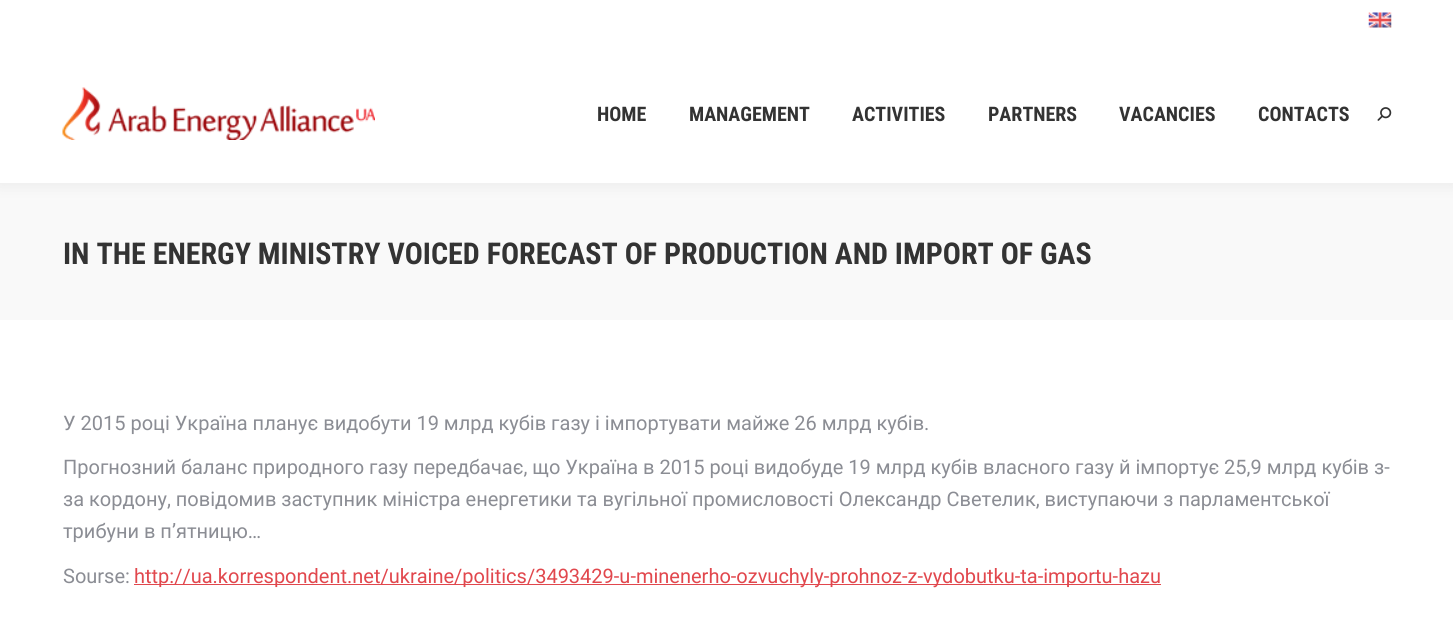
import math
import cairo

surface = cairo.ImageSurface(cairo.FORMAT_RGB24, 1453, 636)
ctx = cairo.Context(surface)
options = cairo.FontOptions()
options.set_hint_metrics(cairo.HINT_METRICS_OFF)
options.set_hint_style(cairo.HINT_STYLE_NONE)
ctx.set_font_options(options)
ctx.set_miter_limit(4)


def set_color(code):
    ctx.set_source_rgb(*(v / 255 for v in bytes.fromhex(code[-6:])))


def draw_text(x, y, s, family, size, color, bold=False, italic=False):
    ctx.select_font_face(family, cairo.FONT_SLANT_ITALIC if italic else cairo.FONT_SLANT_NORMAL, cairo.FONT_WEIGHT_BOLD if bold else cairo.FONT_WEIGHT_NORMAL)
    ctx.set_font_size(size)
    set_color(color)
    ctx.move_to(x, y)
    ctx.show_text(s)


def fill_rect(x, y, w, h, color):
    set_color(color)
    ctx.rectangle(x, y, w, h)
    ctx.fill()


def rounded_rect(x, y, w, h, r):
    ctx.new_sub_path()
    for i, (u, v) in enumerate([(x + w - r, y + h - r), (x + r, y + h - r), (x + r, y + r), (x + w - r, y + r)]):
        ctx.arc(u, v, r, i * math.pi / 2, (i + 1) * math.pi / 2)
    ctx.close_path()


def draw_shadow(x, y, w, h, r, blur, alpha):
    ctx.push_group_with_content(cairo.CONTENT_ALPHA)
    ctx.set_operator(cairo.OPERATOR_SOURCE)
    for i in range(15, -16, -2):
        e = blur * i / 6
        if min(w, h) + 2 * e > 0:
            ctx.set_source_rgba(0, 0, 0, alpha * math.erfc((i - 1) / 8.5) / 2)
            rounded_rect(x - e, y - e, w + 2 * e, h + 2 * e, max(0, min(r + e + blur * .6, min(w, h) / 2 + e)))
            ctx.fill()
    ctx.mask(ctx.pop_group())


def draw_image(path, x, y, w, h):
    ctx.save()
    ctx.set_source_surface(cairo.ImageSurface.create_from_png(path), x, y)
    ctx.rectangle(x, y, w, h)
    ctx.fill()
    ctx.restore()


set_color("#ffffff")
ctx.paint()
fill_rect(0, 183, 1453, 137, "#f9f9f9")
set_color("#000000")
draw_shadow(-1, -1, 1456, 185, 0, 9.5, 0.07)
fill_rect(0, 0, 1453, 183, "#ffffff")
draw_image("assets/img1.png", 1368, 12, 24, 16)
draw_image("assets/img2.png", 62, 87, 313, 53)
draw_text(597, 121, "HOME", "Roboto Condensed", 20, "#333333", bold=True)
draw_text(689, 121, "MANAGEMENT", "Roboto Condensed", 20, "#333333", bold=True)
draw_text(852, 121, "ACTIVITIES", "Roboto Condensed", 20, "#333333", bold=True)
draw_text(988, 121, "PARTNERS", "Roboto Condensed", 20, "#333333", bold=True)
draw_text(1119, 121, "VACANCIES", "Roboto Condensed", 20, "#333333", bold=True)
draw_text(1258, 121, "CONTACTS", "Roboto Condensed", 20, "#333333", bold=True)
draw_image("assets/img3.png", 1377, 107, 15, 14)
draw_text(63, 264, "IN THE ENERGY MINISTRY VOICED FORECAST OF PRODUCTION AND IMPORT OF GAS", "Roboto Condensed", 30, "#333333", bold=True)
draw_text(63, 430, "У 2015 році Україна планує видобути 19 млрд кубів газу і імпортувати майже 26 млрд кубів.", "Roboto", 20, "#8b8d94")
draw_text(63, 474, "Прогнозний баланс природного газу передбачає, що Україна в 2015 році видобуде 19 млрд кубів власного газу й імпортує 25,9 млрд кубів з-", "Roboto", 20, "#8b8d94")
draw_text(63, 506, "за кордону, повідомив заступник міністра енергетики та вугільної промисловості Олександр Светелик, виступаючи з парламентської", "Roboto", 20, "#8b8d94")
draw_text(63, 538, "трибуни в п’ятницю…", "Roboto", 20, "#8b8d94")
draw_text(63, 583, "Sourse:", "Roboto", 20, "#8b8d94")
fill_rect(134, 584, 1027, 1, "#e1474d")
draw_text(134, 583, "http://ua.korrespondent.net/ukraine/politics/3493429-u-minenerho-ozvuchyly-prohnoz-z-vydobutku-ta-importu-hazu", "Roboto", 20, "#e1474d")
surface.write_to_png("output.png")
